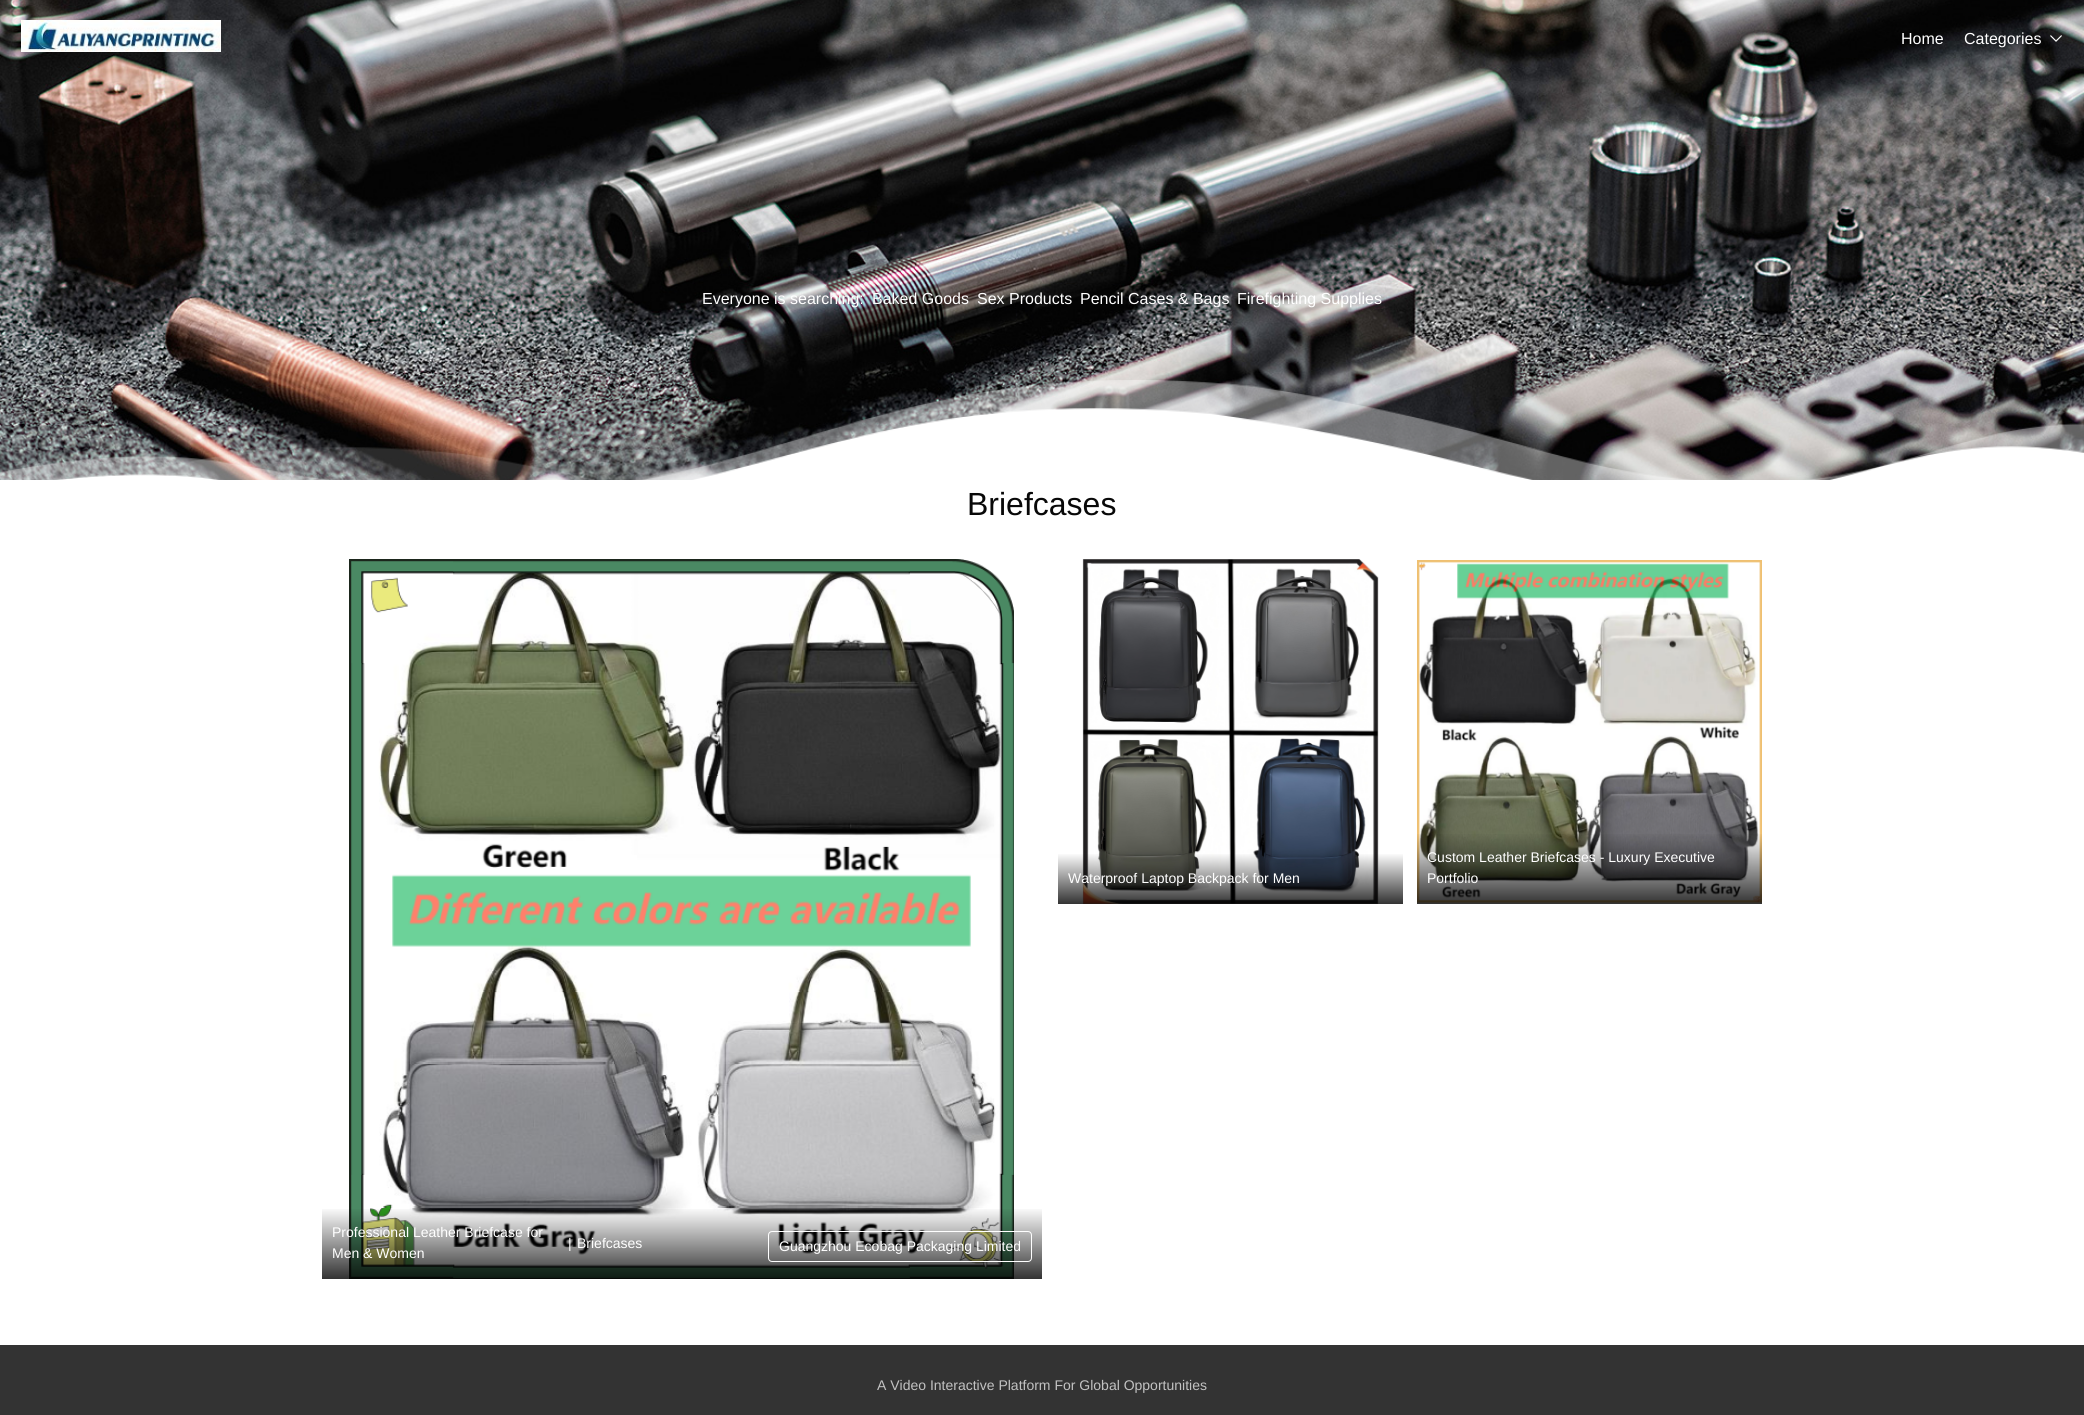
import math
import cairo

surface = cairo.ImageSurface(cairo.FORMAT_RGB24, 2084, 1415)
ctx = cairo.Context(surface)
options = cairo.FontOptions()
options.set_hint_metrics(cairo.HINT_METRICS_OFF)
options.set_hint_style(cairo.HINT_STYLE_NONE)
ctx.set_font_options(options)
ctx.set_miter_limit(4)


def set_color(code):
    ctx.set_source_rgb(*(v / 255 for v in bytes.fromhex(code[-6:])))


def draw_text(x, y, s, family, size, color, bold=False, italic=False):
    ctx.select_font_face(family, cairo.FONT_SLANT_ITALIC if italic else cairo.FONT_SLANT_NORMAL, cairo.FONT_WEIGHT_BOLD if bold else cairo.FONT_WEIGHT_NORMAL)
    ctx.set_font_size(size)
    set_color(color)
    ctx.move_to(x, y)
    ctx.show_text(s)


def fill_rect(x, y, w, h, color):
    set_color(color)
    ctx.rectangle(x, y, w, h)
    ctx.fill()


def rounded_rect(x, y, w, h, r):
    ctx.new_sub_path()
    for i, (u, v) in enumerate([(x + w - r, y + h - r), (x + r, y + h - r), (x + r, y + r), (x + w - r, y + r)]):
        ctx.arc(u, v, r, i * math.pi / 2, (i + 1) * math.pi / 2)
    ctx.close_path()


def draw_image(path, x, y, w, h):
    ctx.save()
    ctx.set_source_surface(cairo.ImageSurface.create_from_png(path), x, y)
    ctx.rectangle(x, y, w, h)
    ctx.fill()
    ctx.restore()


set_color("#ffffff")
ctx.paint()
draw_image("assets/img1.png", 0, 0, 2084, 480)
draw_image("assets/img2.png", 21, 20, 200, 32)
draw_text(1901, 44, "Home", "Liberation Sans", 16, "#ffffff")
draw_text(1964, 44, "Categories", "Liberation Sans", 16, "#ffffff")
draw_image("assets/img3.png", 2050, 35, 12, 7)
draw_text(702, 304, "Everyone is searching:", "Liberation Sans", 16, "#ffffff")
draw_text(872, 304, "Baked Goods", "Liberation Sans", 16, "#ffffff")
draw_text(977, 304, "Sex Products", "Liberation Sans", 16, "#ffffff")
draw_text(1080, 304, "Pencil Cases & Bags", "Liberation Sans", 16, "#ffffff")
draw_text(1237, 304, "Firefighting Supplies", "Liberation Sans", 16, "#ffffff")
draw_image("assets/img4.png", 0, 380, 2084, 100)
draw_text(967, 515, "Briefcases", "Liberation Sans", 32, "#080808")
draw_image("assets/img5.png", 1082, 559, 297, 345)
gradient = cairo.LinearGradient(1231, 853, 1231, 904)
gradient.add_color_stop_rgba(0, 0, 0, 0, 0)
gradient.add_color_stop_rgba(1, 0, 0, 0, 0.8)
ctx.set_source(gradient)
ctx.rectangle(1058, 854, 345, 50)
ctx.fill()
draw_text(1068, 883, "Waterproof Laptop Backpack for Men", "Liberation Sans", 14, "#ffffff")
draw_image("assets/img6.png", 1417, 560, 345, 344)
gradient = cairo.LinearGradient(1590, 832, 1590, 904)
gradient.add_color_stop_rgba(0, 0, 0, 0, 0)
gradient.add_color_stop_rgba(1, 0, 0, 0, 0.8)
ctx.set_source(gradient)
ctx.rectangle(1417, 834, 345, 70)
ctx.fill()
draw_text(1427, 862, "Custom Leather Briefcases - Luxury Executive", "Liberation Sans", 14, "#ffffff")
draw_text(1427, 883, "Portfolio", "Liberation Sans", 14, "#ffffff")
draw_image("assets/img7.png", 349, 559, 665, 720)
gradient = cairo.LinearGradient(682, 1207, 682, 1279)
gradient.add_color_stop_rgba(0, 0, 0, 0, 0)
gradient.add_color_stop_rgba(1, 0, 0, 0, 0.8)
ctx.set_source(gradient)
ctx.rectangle(322, 1209, 720, 70)
ctx.fill()
draw_text(332, 1237, "Professional Leather Briefcase for", "Liberation Sans", 14, "#ffffff")
draw_text(332, 1258, "Men & Women", "Liberation Sans", 14, "#ffffff")
draw_text(568, 1248, "|", "Liberation Sans", 14, "#ffffff")
draw_text(577, 1248, "Briefcases", "Liberation Sans", 14, "#ffffff")
rounded_rect(768.5, 1231.5, 263, 30, 3.5)
ctx.set_line_width(1)
ctx.stroke()
draw_text(779, 1251, "Guangzhou Ecobag Packaging Limited", "Liberation Sans", 14, "#ffffff")
fill_rect(0, 1345, 2084, 70, "#333333")
draw_text(877, 1390, "A Video Interactive Platform For Global Opportunities", "Liberation Sans", 14, "#c2c2c2")
surface.write_to_png("output.png")
